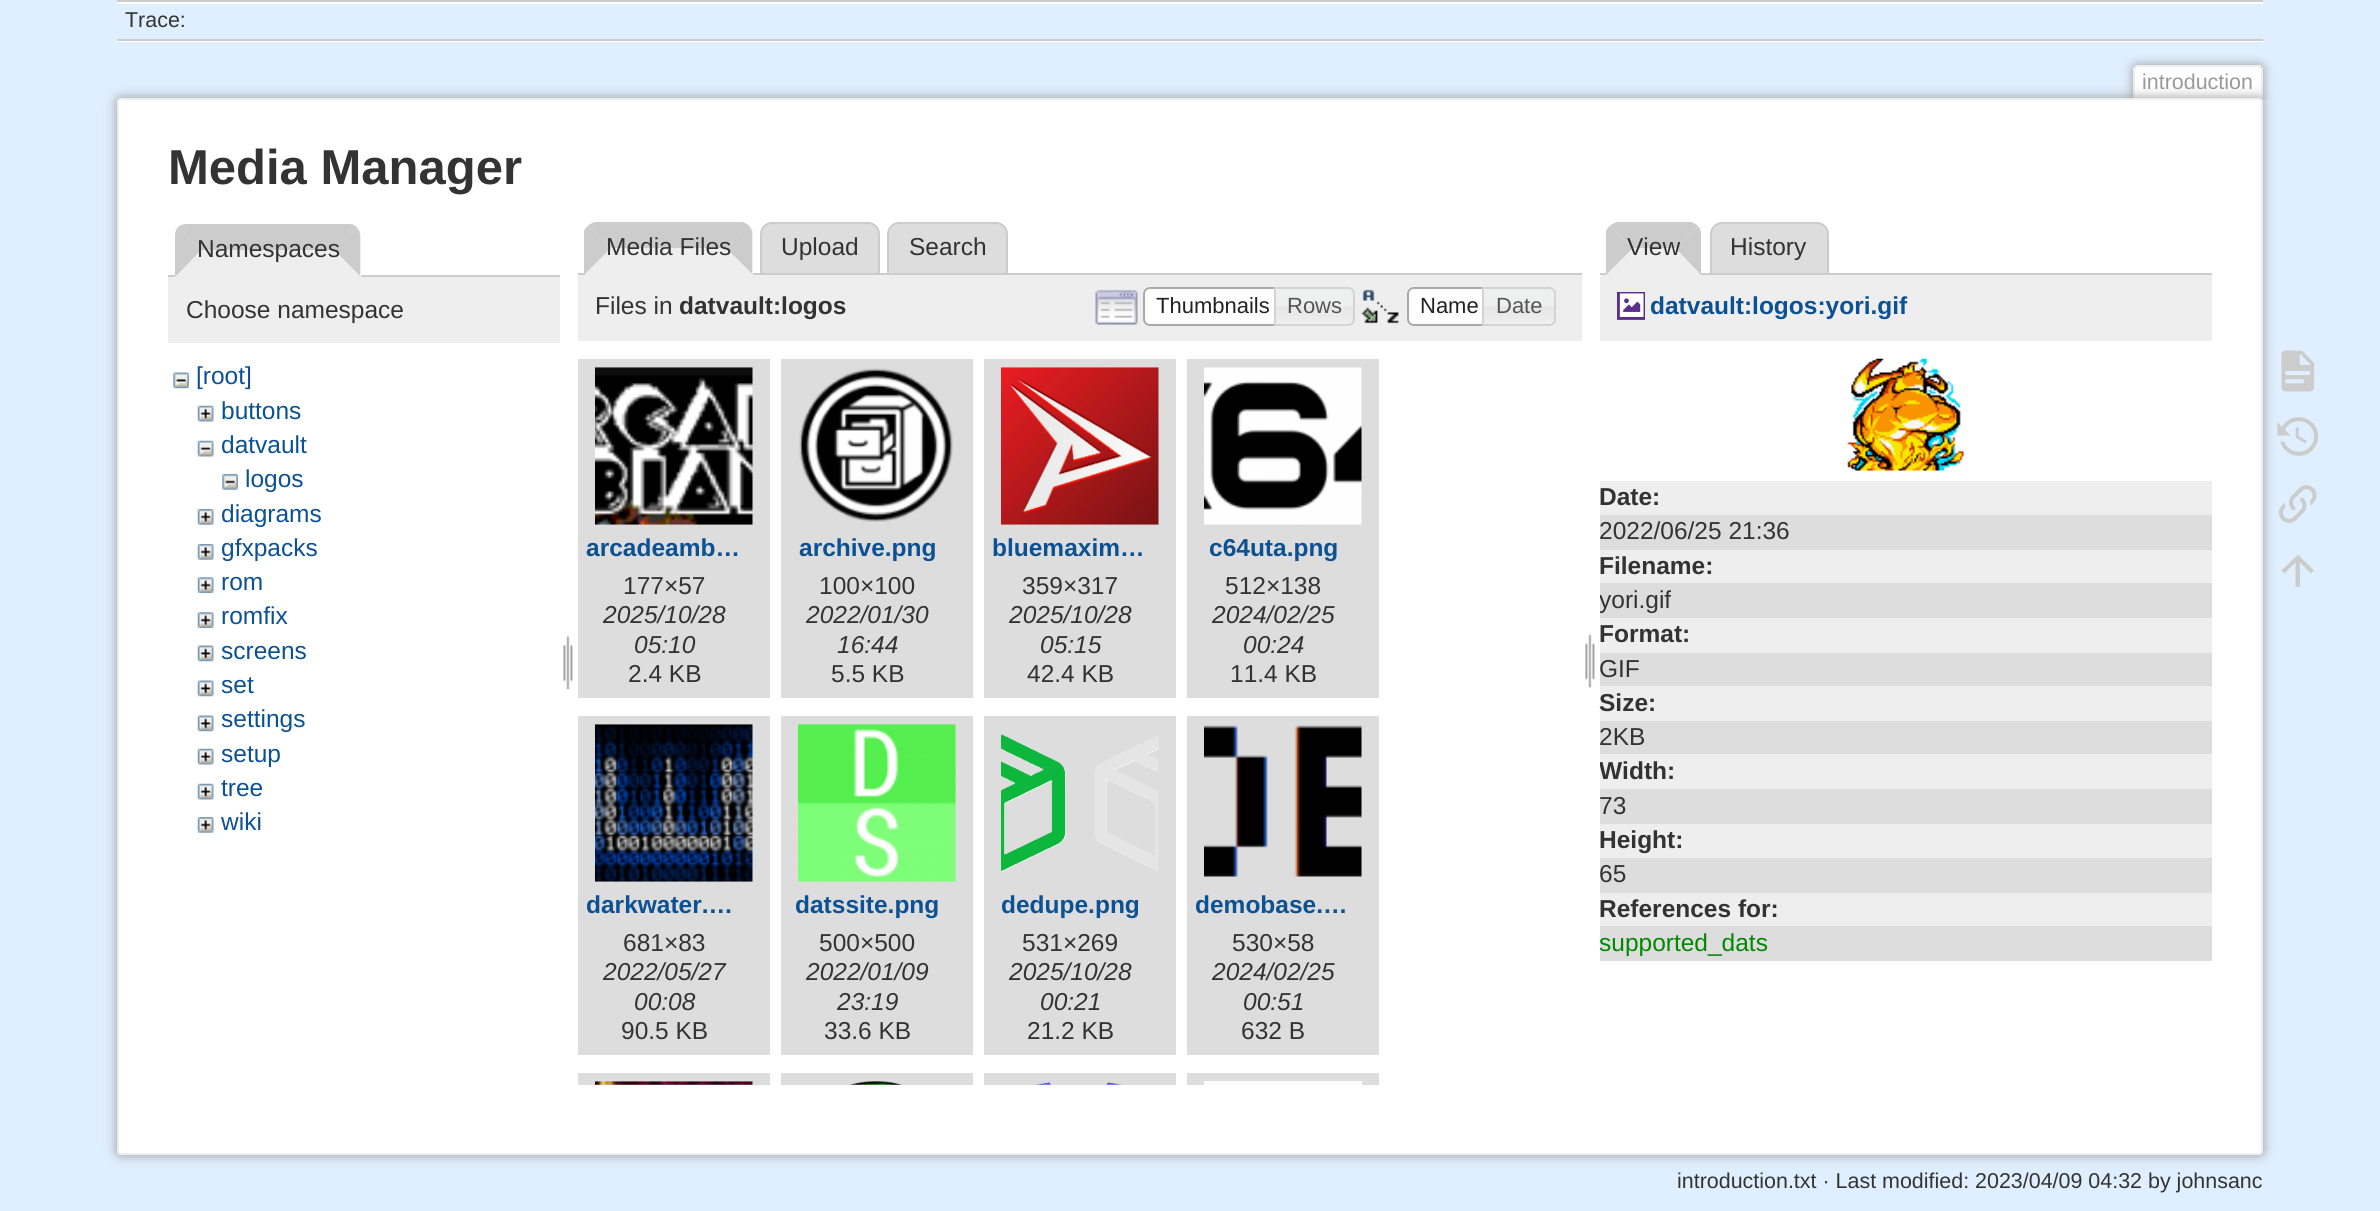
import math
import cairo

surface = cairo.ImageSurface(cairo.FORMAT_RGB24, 2380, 1211)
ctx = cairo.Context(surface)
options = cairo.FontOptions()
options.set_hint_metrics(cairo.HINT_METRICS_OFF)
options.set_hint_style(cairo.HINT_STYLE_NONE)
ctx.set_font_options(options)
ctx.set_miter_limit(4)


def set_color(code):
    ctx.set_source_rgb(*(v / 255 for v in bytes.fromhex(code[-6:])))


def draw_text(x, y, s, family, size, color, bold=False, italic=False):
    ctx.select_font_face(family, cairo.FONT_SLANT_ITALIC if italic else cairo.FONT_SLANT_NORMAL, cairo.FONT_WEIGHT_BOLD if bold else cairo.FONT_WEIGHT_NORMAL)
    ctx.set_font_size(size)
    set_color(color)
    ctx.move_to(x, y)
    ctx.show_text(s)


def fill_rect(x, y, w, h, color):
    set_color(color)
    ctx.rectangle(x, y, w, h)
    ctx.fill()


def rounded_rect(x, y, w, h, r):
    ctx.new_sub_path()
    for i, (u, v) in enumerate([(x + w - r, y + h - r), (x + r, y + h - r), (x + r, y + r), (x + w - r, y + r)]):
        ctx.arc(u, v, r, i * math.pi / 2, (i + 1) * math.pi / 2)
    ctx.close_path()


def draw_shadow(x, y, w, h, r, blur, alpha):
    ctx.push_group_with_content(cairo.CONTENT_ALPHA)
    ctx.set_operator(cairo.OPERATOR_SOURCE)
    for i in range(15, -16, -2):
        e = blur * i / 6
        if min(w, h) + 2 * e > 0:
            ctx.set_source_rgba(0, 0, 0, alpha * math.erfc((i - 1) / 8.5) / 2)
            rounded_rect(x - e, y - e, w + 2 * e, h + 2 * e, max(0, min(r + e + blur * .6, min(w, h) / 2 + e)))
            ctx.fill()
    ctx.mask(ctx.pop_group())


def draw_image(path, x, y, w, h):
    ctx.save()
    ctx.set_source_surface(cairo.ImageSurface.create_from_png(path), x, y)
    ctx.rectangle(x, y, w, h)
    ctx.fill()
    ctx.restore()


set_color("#e0efff")
ctx.paint()
fill_rect(117, 0, 2146, 2, "#cccccc")
fill_rect(117, 41, 2146, 1, "#ffffff")
fill_rect(117, 2, 2146, 2, "#ffffff")
fill_rect(117, 39, 2146, 2, "#cccccc")
draw_text(125, 27, "Trace:", "Liberation Sans", 21.45, "#333333")
ctx.save()
ctx.rectangle(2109, 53, 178, 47)
ctx.clip()
set_color("#999999")
draw_shadow(2133, 65, 130, 35, 4, 5.5, 1)
ctx.restore()
set_color("#ffffff")
ctx.new_path()
ctx.move_to(2137, 67)
ctx.line_to(2259, 67)
ctx.curve_to(2260, 67, 2261, 68, 2261, 69)
ctx.line_to(2261, 100)
ctx.line_to(2135, 100)
ctx.line_to(2135, 69)
ctx.curve_to(2135, 68, 2136, 67, 2137, 67)
ctx.close_path()
ctx.fill()
fill_rect(2135, 65, 126, 2, "#eeeeee")
fill_rect(2261, 67, 2, 33, "#eeeeee")
fill_rect(2133, 67, 2, 33, "#eeeeee")
draw_text(2142, 89, "introduction", "Liberation Sans", 21.45, "#999999")
set_color("#999999")
draw_shadow(117, 98, 2146, 1057, 4, 6, 1)
set_color("#ffffff")
rounded_rect(118, 99, 2144, 1055, 3)
ctx.fill_preserve()
set_color("#eeeeee")
ctx.stroke()
draw_text(168, 184, "Media Manager", "Liberation Sans", 49, "#333333", bold=True)
fill_rect(168, 275, 392, 2, "#cccccc")
set_color("#eeeeee")
ctx.new_path()
ctx.move_to(187, 224)
ctx.line_to(349, 224)
ctx.curve_to(355.5, 224, 361, 229.5, 361, 236)
ctx.line_to(361, 277)
ctx.line_to(175, 277)
ctx.line_to(175, 236)
ctx.curve_to(175, 229.5, 180.5, 224, 187, 224)
ctx.close_path()
ctx.fill()
set_color("#cccccc")
ctx.new_path()
ctx.move_to(187, 224)
ctx.line_to(348, 224)
ctx.curve_to(352, 224, 355, 225, 357, 228)
ctx.line_to(334, 250)
ctx.line_to(201, 250)
ctx.line_to(178, 227)
ctx.curve_to(180, 225, 184, 224, 187, 224)
ctx.close_path()
ctx.fill()
ctx.new_path()
ctx.move_to(357, 228)
ctx.line_to(334, 250)
ctx.line_to(360, 276)
ctx.line_to(360, 236)
ctx.curve_to(360, 233, 359, 230, 357, 228)
ctx.close_path()
ctx.fill()
set_color("#eeeeee")
ctx.new_path()
ctx.move_to(360, 276)
ctx.line_to(334, 250)
ctx.line_to(201, 250)
ctx.line_to(176, 276)
ctx.close_path()
ctx.fill()
set_color("#cccccc")
ctx.new_path()
ctx.move_to(176, 276)
ctx.line_to(201, 250)
ctx.line_to(178, 227)
ctx.curve_to(176, 230, 175, 232, 175, 236)
ctx.line_to(175, 276)
ctx.close_path()
ctx.fill()
draw_text(197, 257, "Namespaces", "Liberation Sans", 24.5, "#333333")
fill_rect(168, 277, 392, 66, "#eeeeee")
draw_text(186, 318, "Choose namespace", "Liberation Sans", 24.5, "#333333")
draw_image("assets/img1.png", 173, 372, 16, 17)
draw_text(196, 384, "[root]", "Liberation Sans", 24.5, "#0b5193")
draw_image("assets/img2.png", 197, 405, 17, 17)
draw_text(221, 419, "buttons", "Liberation Sans", 24.5, "#0b5193")
draw_image("assets/img3.png", 197, 440, 17, 17)
draw_text(221, 453, "datvault", "Liberation Sans", 24.5, "#0b5193")
draw_image("assets/img4.png", 222, 474, 16, 16)
draw_text(245, 487, "logos", "Liberation Sans", 24.5, "#0b5193")
draw_image("assets/img5.png", 197, 509, 17, 16)
draw_text(221, 522, "diagrams", "Liberation Sans", 24.5, "#0b5193")
draw_image("assets/img5.png", 197, 544, 17, 16)
draw_text(221, 556, "gfxpacks", "Liberation Sans", 24.5, "#0b5193")
draw_image("assets/img6.png", 197, 577, 17, 16)
draw_text(221, 590, "rom", "Liberation Sans", 24.5, "#0b5193")
draw_image("assets/img6.png", 197, 612, 17, 16)
draw_text(221, 624, "romfix", "Liberation Sans", 24.5, "#0b5193")
draw_image("assets/img7.png", 197, 645, 17, 17)
draw_text(221, 659, "screens", "Liberation Sans", 24.5, "#0b5193")
draw_image("assets/img7.png", 197, 680, 17, 17)
draw_text(221, 693, "set", "Liberation Sans", 24.5, "#0b5193")
draw_image("assets/img7.png", 197, 715, 17, 17)
draw_text(221, 727, "settings", "Liberation Sans", 24.5, "#0b5193")
draw_image("assets/img2.png", 197, 748, 17, 17)
draw_text(221, 762, "setup", "Liberation Sans", 24.5, "#0b5193")
draw_image("assets/img2.png", 197, 783, 17, 17)
draw_text(221, 796, "tree", "Liberation Sans", 24.5, "#0b5193")
draw_image("assets/img5.png", 197, 817, 17, 16)
draw_text(221, 830, "wiki", "Liberation Sans", 24.5, "#0b5193")
draw_image("assets/img8.png", 563, 635, 10, 55)
set_color("#dddddd")
ctx.new_path()
ctx.move_to(772, 223)
ctx.line_to(868, 223)
ctx.curve_to(874, 223, 879, 228, 879, 234)
ctx.line_to(879, 274)
ctx.line_to(761, 274)
ctx.line_to(761, 234)
ctx.curve_to(761, 228, 766, 223, 772, 223)
ctx.close_path()
ctx.fill_preserve()
set_color("#cccccc")
ctx.stroke()
set_color("#dddddd")
ctx.new_path()
ctx.move_to(899, 223)
ctx.line_to(996, 223)
ctx.curve_to(1002, 223, 1007, 228, 1007, 234)
ctx.line_to(1007, 274)
ctx.line_to(888, 274)
ctx.line_to(888, 234)
ctx.curve_to(888, 228, 893, 223, 899, 223)
ctx.close_path()
ctx.fill_preserve()
set_color("#cccccc")
ctx.stroke()
fill_rect(578, 273, 1004, 2, "#cccccc")
set_color("#eeeeee")
ctx.new_path()
ctx.move_to(597, 222)
ctx.line_to(741, 222)
ctx.curve_to(747.5, 222, 753, 227.5, 753, 234)
ctx.line_to(753, 275)
ctx.line_to(585, 275)
ctx.line_to(585, 234)
ctx.curve_to(585, 227.5, 590.5, 222, 597, 222)
ctx.close_path()
ctx.fill()
set_color("#cccccc")
ctx.new_path()
ctx.move_to(742, 222)
ctx.line_to(595, 222)
ctx.curve_to(592, 223, 590, 224, 588, 226)
ctx.line_to(611, 248)
ctx.line_to(726, 248)
ctx.line_to(749, 226)
ctx.curve_to(747, 224, 745, 223, 742, 222)
ctx.close_path()
ctx.fill()
ctx.new_path()
ctx.move_to(749, 226)
ctx.line_to(726, 248)
ctx.line_to(752, 274)
ctx.line_to(752, 234)
ctx.curve_to(752, 231, 751, 228, 749, 226)
ctx.close_path()
ctx.fill()
set_color("#eeeeee")
ctx.new_path()
ctx.move_to(752, 274)
ctx.line_to(726, 248)
ctx.line_to(611, 248)
ctx.line_to(584, 275)
ctx.line_to(752, 275)
ctx.close_path()
ctx.fill()
set_color("#cccccc")
ctx.new_path()
ctx.move_to(584, 275)
ctx.line_to(611, 248)
ctx.line_to(588, 226)
ctx.curve_to(586, 227, 585, 229, 584, 231)
ctx.close_path()
ctx.fill()
draw_text(606, 255, "Media Files", "Liberation Sans", 24.5, "#333333")
draw_text(781, 255, "Upload", "Liberation Sans", 24.5, "#333333")
draw_text(909, 255, "Search", "Liberation Sans", 24.5, "#333333")
fill_rect(578, 275, 1004, 66, "#eeeeee")
draw_text(595, 314, "Files in", "Liberation Sans", 24.5, "#333333")
draw_text(679, 314, "datvault:logos", "Liberation Sans", 24.5, "#333333", bold=True)
draw_image("assets/img9.png", 1095, 289, 43, 36)
set_color("#ffffff")
ctx.new_path()
ctx.move_to(1150, 287)
ctx.line_to(1283, 287)
ctx.line_to(1283, 326)
ctx.line_to(1150, 326)
ctx.curve_to(1146, 326, 1143, 323, 1143, 319)
ctx.line_to(1143, 294)
ctx.curve_to(1143, 290, 1146, 287, 1150, 287)
ctx.close_path()
ctx.fill()
draw_image("assets/img10.png", 1143, 287, 5, 5)
ctx.new_path()
ctx.move_to(1150, 288)
ctx.line_to(1282, 288)
ctx.line_to(1282, 325)
ctx.line_to(1150, 325)
ctx.curve_to(1146.5, 325, 1144, 322.5, 1144, 319)
ctx.line_to(1144, 294)
ctx.curve_to(1144, 290.5, 1146.5, 288, 1150, 288)
ctx.close_path()
set_color("#aaaaaa")
ctx.stroke()
draw_text(1156, 313, "Thumbnails", "Liberation Sans", 22, "#212121")
draw_image("assets/img11.png", 1276, 287, 78, 38)
ctx.new_path()
ctx.move_to(1275, 288)
ctx.line_to(1348, 288)
ctx.curve_to(1351.5, 288, 1354, 290.5, 1354, 294)
ctx.line_to(1354, 319)
ctx.curve_to(1354, 322.5, 1351.5, 325, 1348, 325)
ctx.line_to(1275, 325)
ctx.close_path()
set_color("#d3d3d3")
ctx.stroke()
draw_text(1287, 313, "Rows", "Liberation Sans", 22, "#555555")
draw_image("assets/img12.png", 1361, 289, 38, 35)
set_color("#ffffff")
ctx.new_path()
ctx.move_to(1414, 287)
ctx.line_to(1491, 287)
ctx.line_to(1491, 326)
ctx.line_to(1414, 326)
ctx.curve_to(1410, 326, 1407, 323, 1407, 319)
ctx.line_to(1407, 294)
ctx.curve_to(1407, 290, 1410, 287, 1414, 287)
ctx.close_path()
ctx.fill()
draw_image("assets/img13.png", 1407, 287, 5, 5)
ctx.new_path()
ctx.move_to(1414, 288)
ctx.line_to(1490, 288)
ctx.line_to(1490, 325)
ctx.line_to(1414, 325)
ctx.curve_to(1410.5, 325, 1408, 322.5, 1408, 319)
ctx.line_to(1408, 294)
ctx.curve_to(1408, 290.5, 1410.5, 288, 1414, 288)
ctx.close_path()
set_color("#aaaaaa")
ctx.stroke()
draw_text(1420, 313, "Name", "Liberation Sans", 22, "#212121")
draw_image("assets/img14.png", 1484, 287, 72, 38)
ctx.new_path()
ctx.move_to(1483, 288)
ctx.line_to(1549, 288)
ctx.curve_to(1552.5, 288, 1555, 290.5, 1555, 294)
ctx.line_to(1555, 319)
ctx.curve_to(1555, 322.5, 1552.5, 325, 1549, 325)
ctx.line_to(1483, 325)
ctx.close_path()
set_color("#d3d3d3")
ctx.stroke()
draw_text(1496, 313, "Date", "Liberation Sans", 22, "#555555")
fill_rect(578, 359, 192, 339, "#dddddd")
draw_image("assets/img15.png", 595, 367, 158, 158)
draw_text(586, 556, "arcadeamb…", "Liberation Sans", 24.5, "#0b5193", bold=True)
draw_text(623, 594, "177×57", "Liberation Sans", 24.5, "#333333")
draw_text(603, 623, "2025/10/28", "Liberation Sans", 24.5, "#333333", italic=True)
draw_text(634, 653, "05:10", "Liberation Sans", 24.5, "#333333", italic=True)
draw_text(628, 682, "2.4 KB", "Liberation Sans", 24.5, "#333333")
fill_rect(781, 359, 192, 339, "#dddddd")
draw_image("assets/img16.png", 799, 368, 154, 154)
draw_text(799, 556, "archive.png", "Liberation Sans", 24.5, "#0b5193", bold=True)
draw_text(819, 594, "100×100", "Liberation Sans", 24.5, "#333333")
draw_text(806, 623, "2022/01/30", "Liberation Sans", 24.5, "#333333", italic=True)
draw_text(837, 653, "16:44", "Liberation Sans", 24.5, "#333333", italic=True)
draw_text(831, 682, "5.5 KB", "Liberation Sans", 24.5, "#333333")
fill_rect(984, 359, 192, 339, "#dddddd")
draw_image("assets/img17.png", 1001, 367, 158, 158)
draw_text(992, 556, "bluemaxim…", "Liberation Sans", 24.5, "#0b5193", bold=True)
draw_text(1022, 594, "359×317", "Liberation Sans", 24.5, "#333333")
draw_text(1009, 623, "2025/10/28", "Liberation Sans", 24.5, "#333333", italic=True)
draw_text(1040, 653, "05:15", "Liberation Sans", 24.5, "#333333", italic=True)
draw_text(1027, 682, "42.4 KB", "Liberation Sans", 24.5, "#333333")
fill_rect(1187, 359, 192, 339, "#dddddd")
draw_image("assets/img18.png", 1204, 367, 158, 158)
draw_text(1209, 556, "c64uta.png", "Liberation Sans", 24.5, "#0b5193", bold=True)
draw_text(1225, 594, "512×138", "Liberation Sans", 24.5, "#333333")
draw_text(1212, 623, "2024/02/25", "Liberation Sans", 24.5, "#333333", italic=True)
draw_text(1243, 653, "00:24", "Liberation Sans", 24.5, "#333333", italic=True)
draw_text(1230, 682, "11.4 KB", "Liberation Sans", 24.5, "#333333")
fill_rect(578, 716, 192, 339, "#dddddd")
draw_image("assets/img19.png", 595, 724, 158, 158)
draw_text(586, 913, "darkwater.…", "Liberation Sans", 24.5, "#0b5193", bold=True)
draw_text(623, 951, "681×83", "Liberation Sans", 24.5, "#333333")
draw_text(603, 980, "2022/05/27", "Liberation Sans", 24.5, "#333333", italic=True)
draw_text(634, 1010, "00:08", "Liberation Sans", 24.5, "#333333", italic=True)
draw_text(621, 1039, "90.5 KB", "Liberation Sans", 24.5, "#333333")
fill_rect(781, 716, 192, 339, "#dddddd")
draw_image("assets/img20.png", 798, 724, 158, 158)
draw_text(795, 913, "datssite.png", "Liberation Sans", 24.5, "#0b5193", bold=True)
draw_text(819, 951, "500×500", "Liberation Sans", 24.5, "#333333")
draw_text(806, 980, "2022/01/09", "Liberation Sans", 24.5, "#333333", italic=True)
draw_text(837, 1010, "23:19", "Liberation Sans", 24.5, "#333333", italic=True)
draw_text(824, 1039, "33.6 KB", "Liberation Sans", 24.5, "#333333")
fill_rect(984, 716, 192, 339, "#dddddd")
draw_image("assets/img21.png", 1001, 734, 158, 138)
draw_text(1001, 913, "dedupe.png", "Liberation Sans", 24.5, "#0b5193", bold=True)
draw_text(1022, 951, "531×269", "Liberation Sans", 24.5, "#333333")
draw_text(1009, 980, "2025/10/28", "Liberation Sans", 24.5, "#333333", italic=True)
draw_text(1040, 1010, "00:21", "Liberation Sans", 24.5, "#333333", italic=True)
draw_text(1027, 1039, "21.2 KB", "Liberation Sans", 24.5, "#333333")
fill_rect(1187, 716, 192, 339, "#dddddd")
draw_image("assets/img22.png", 1204, 725, 158, 152)
draw_text(1195, 913, "demobase.…", "Liberation Sans", 24.5, "#0b5193", bold=True)
draw_text(1232, 951, "530×58", "Liberation Sans", 24.5, "#333333")
draw_text(1212, 980, "2024/02/25", "Liberation Sans", 24.5, "#333333", italic=True)
draw_text(1243, 1010, "00:51", "Liberation Sans", 24.5, "#333333", italic=True)
draw_text(1241, 1039, "632 B", "Liberation Sans", 24.5, "#333333")
fill_rect(578, 1073, 192, 12, "#dddddd")
draw_image("assets/img23.png", 595, 1081, 158, 4)
fill_rect(781, 1073, 192, 12, "#dddddd")
draw_image("assets/img24.png", 850, 1081, 52, 4)
fill_rect(984, 1073, 192, 12, "#dddddd")
draw_image("assets/img25.png", 1035, 1082, 87, 3)
fill_rect(1187, 1073, 192, 12, "#dddddd")
fill_rect(1204, 1081, 158, 4, "#ffffff")
draw_image("assets/img26.png", 1585, 633, 10, 55)
set_color("#cccccc")
ctx.new_path()
ctx.move_to(1691, 222)
ctx.line_to(1617, 222)
ctx.curve_to(1614, 223, 1612, 224, 1610, 226)
ctx.line_to(1633, 248)
ctx.line_to(1675, 248)
ctx.line_to(1698, 226)
ctx.curve_to(1696, 224, 1694, 223, 1691, 222)
ctx.close_path()
ctx.fill()
set_color("#dddddd")
ctx.new_path()
ctx.move_to(1722, 223)
ctx.line_to(1817, 223)
ctx.curve_to(1823, 223, 1828, 228, 1828, 234)
ctx.line_to(1828, 274)
ctx.line_to(1711, 274)
ctx.line_to(1711, 234)
ctx.curve_to(1711, 228, 1716, 223, 1722, 223)
ctx.close_path()
ctx.fill_preserve()
set_color("#cccccc")
ctx.stroke()
fill_rect(1600, 273, 612, 2, "#cccccc")
ctx.new_path()
ctx.move_to(1698, 226)
ctx.line_to(1675, 248)
ctx.line_to(1701, 275)
ctx.line_to(1701, 234)
ctx.curve_to(1701, 231, 1700, 228, 1698, 226)
ctx.close_path()
ctx.fill()
set_color("#eeeeee")
ctx.new_path()
ctx.move_to(1701, 275)
ctx.line_to(1675, 248)
ctx.line_to(1633, 248)
ctx.line_to(1606, 275)
ctx.close_path()
ctx.fill()
set_color("#cccccc")
ctx.new_path()
ctx.move_to(1606, 275)
ctx.line_to(1633, 248)
ctx.line_to(1610, 226)
ctx.curve_to(1608, 227, 1607, 229, 1606, 231)
ctx.close_path()
ctx.fill()
draw_text(1627, 255, "View", "Liberation Sans", 24.5, "#333333")
draw_text(1730, 255, "History", "Liberation Sans", 24.5, "#333333")
fill_rect(1600, 275, 612, 66, "#eeeeee")
draw_image("assets/img27.png", 1617, 292, 28, 28)
draw_text(1650, 314, "datvault:logos:yori.gif", "Liberation Sans", 24.5, "#0b5193", bold=True)
draw_image("assets/img28.png", 1847, 358, 117, 113)
fill_rect(1600, 481, 612, 34, "#eeeeee")
draw_text(1599, 505, "Date:", "Liberation Sans", 24.5, "#333333", bold=True)
fill_rect(1600, 515, 612, 35, "#dddddd")
draw_text(1599, 539, "2022/06/25 21:36", "Liberation Sans", 24.5, "#333333")
fill_rect(1600, 550, 612, 33, "#eeeeee")
draw_text(1599, 574, "Filename:", "Liberation Sans", 24.5, "#333333", bold=True)
fill_rect(1600, 583, 612, 35, "#dddddd")
ctx.save()
ctx.rectangle(1600, 359, 612, 726)
ctx.clip()
draw_text(1599, 608, "yori.gif", "Liberation Sans", 24.5, "#333333")
ctx.restore()
fill_rect(1600, 618, 612, 35, "#eeeeee")
draw_text(1599, 642, "Format:", "Liberation Sans", 24.5, "#333333", bold=True)
fill_rect(1600, 653, 612, 33, "#dddddd")
draw_text(1599, 677, "GIF", "Liberation Sans", 24.5, "#333333")
fill_rect(1600, 686, 612, 35, "#eeeeee")
draw_text(1599, 711, "Size:", "Liberation Sans", 24.5, "#333333", bold=True)
fill_rect(1600, 721, 612, 33, "#dddddd")
draw_text(1599, 745, "2KB", "Liberation Sans", 24.5, "#333333")
fill_rect(1600, 754, 612, 35, "#eeeeee")
ctx.save()
ctx.rectangle(1600, 359, 612, 726)
ctx.clip()
draw_text(1599, 779, "Width:", "Liberation Sans", 24.5, "#333333", bold=True)
ctx.restore()
fill_rect(1600, 789, 612, 35, "#dddddd")
draw_text(1599, 814, "73", "Liberation Sans", 24.5, "#333333")
fill_rect(1600, 824, 612, 34, "#eeeeee")
draw_text(1599, 848, "Height:", "Liberation Sans", 24.5, "#333333", bold=True)
fill_rect(1600, 858, 612, 35, "#dddddd")
draw_text(1599, 882, "65", "Liberation Sans", 24.5, "#333333")
fill_rect(1600, 893, 612, 33, "#eeeeee")
draw_text(1599, 917, "References for:", "Liberation Sans", 24.5, "#333333", bold=True)
fill_rect(1600, 926, 612, 35, "#dddddd")
ctx.save()
ctx.rectangle(1600, 359, 612, 726)
ctx.clip()
draw_text(1599, 951, "supported_dats", "Liberation Sans", 24.5, "#008800")
ctx.restore()
draw_text(1677, 1188, "introduction.txt · Last modified: 2023/04/09 04:32 by johnsanc", "Liberation Sans", 21.45, "#333333")
draw_image("assets/img29.png", 2281, 350, 34, 42)
draw_image("assets/img30.png", 2277, 417, 42, 39)
draw_image("assets/img31.png", 2278, 485, 39, 38)
set_color("#cccccc")
ctx.new_path()
ctx.move_to(2300, 587)
ctx.line_to(2295.5, 587)
ctx.line_to(2295.5, 562.5)
ctx.line_to(2284.5, 573.5)
ctx.line_to(2281.5, 570.5)
ctx.line_to(2298, 554.5)
ctx.line_to(2314, 570.5)
ctx.line_to(2311, 573.5)
ctx.line_to(2300, 562.5)
ctx.close_path()
ctx.fill()
surface.write_to_png("output.png")
